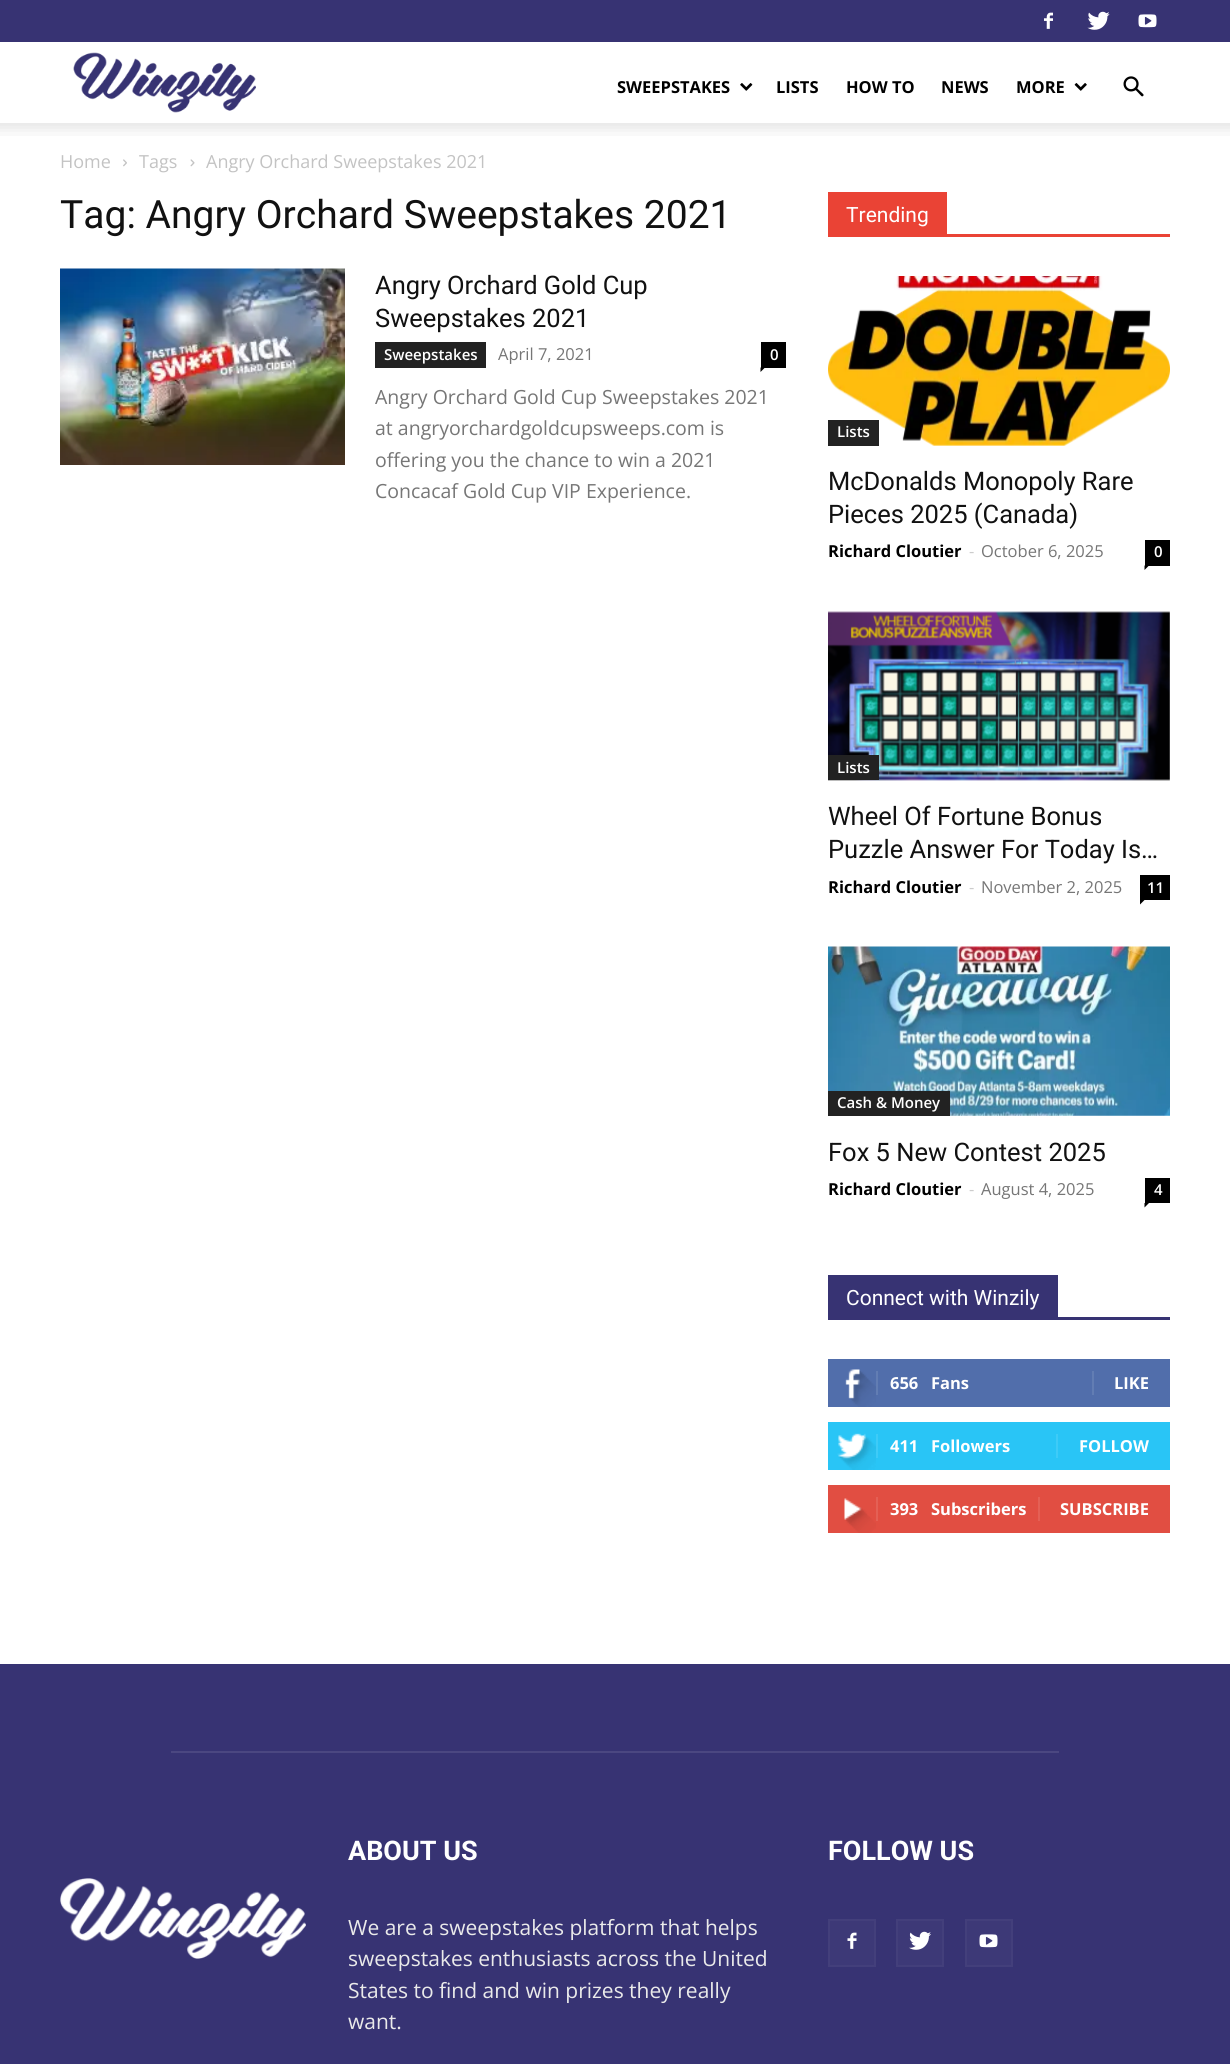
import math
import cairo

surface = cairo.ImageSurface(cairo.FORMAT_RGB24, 1230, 2064)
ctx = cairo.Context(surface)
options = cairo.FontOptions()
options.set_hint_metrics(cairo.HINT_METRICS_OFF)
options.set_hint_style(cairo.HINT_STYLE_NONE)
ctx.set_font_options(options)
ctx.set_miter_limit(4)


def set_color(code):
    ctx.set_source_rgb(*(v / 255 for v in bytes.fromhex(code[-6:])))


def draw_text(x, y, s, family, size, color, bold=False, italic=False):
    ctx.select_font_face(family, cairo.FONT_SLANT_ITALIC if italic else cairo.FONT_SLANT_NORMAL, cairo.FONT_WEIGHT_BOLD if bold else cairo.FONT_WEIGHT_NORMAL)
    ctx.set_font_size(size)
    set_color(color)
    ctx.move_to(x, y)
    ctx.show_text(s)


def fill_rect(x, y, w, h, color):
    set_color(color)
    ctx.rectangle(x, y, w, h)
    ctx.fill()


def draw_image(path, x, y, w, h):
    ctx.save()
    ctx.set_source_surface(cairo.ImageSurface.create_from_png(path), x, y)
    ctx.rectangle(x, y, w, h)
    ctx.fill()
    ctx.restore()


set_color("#ffffff")
ctx.paint()
fill_rect(0, 0, 1230, 42, "#373373")
draw_image("assets/img1.png", 1044, 12, 9, 17)
draw_image("assets/img2.png", 1087, 11, 23, 19)
draw_image("assets/img3.png", 1138, 14, 19, 14)
draw_image("assets/img4.png", 73, 52, 183, 61)
draw_text(617, 93, "SWEEPSTAKES", "Open Sans", 16.5, "#000000", bold=True)
draw_image("assets/img5.png", 740, 83, 13, 8)
draw_text(776, 93, "LISTS", "Open Sans", 16.5, "#000000", bold=True)
draw_text(846, 93, "HOW TO", "Open Sans", 16.5, "#000000", bold=True)
draw_text(941, 93, "NEWS", "Open Sans", 16.5, "#000000", bold=True)
draw_text(1016, 93, "MORE", "Open Sans", 16.5, "#000000", bold=True)
draw_image("assets/img6.png", 1074, 83, 13, 8)
draw_image("assets/img7.png", 1123, 76, 21, 21)
draw_image("assets/img8.png", 0, 123, 1230, 13)
draw_text(60, 168, "Home", "Open Sans", 18, "#c3c3c3")
draw_image("assets/img9.png", 123, 159, 4, 8)
draw_text(139, 168, "Tags", "Open Sans", 18, "#c3c3c3")
draw_image("assets/img10.png", 190, 159, 5, 8)
draw_text(206, 168, "Angry Orchard Sweepstakes 2021", "Open Sans", 18, "#c3c3c3")
draw_text(60, 228, "Tag: Angry Orchard Sweepstakes 2021", "Roboto", 39, "#111111")
draw_image("assets/img11.png", 60, 268, 285, 197)
draw_text(375, 294, "Angry Orchard Gold Cup", "Roboto", 25.5, "#111111")
draw_text(375, 327, "Sweepstakes 2021", "Roboto", 25.5, "#111111")
fill_rect(375, 342, 111, 26, "#222222")
draw_text(384, 360, "Sweepstakes", "Open Sans SemiBold", 15, "#ffffff")
draw_text(498, 360, "April 7, 2021", "Open Sans", 16.5, "#767676")
fill_rect(761, 342, 25, 26, "#000000")
draw_text(770, 360, "0", "Open Sans SemiBold", 15, "#ffffff")
set_color("#000000")
ctx.new_path()
ctx.move_to(760.5, 367.5)
ctx.line_to(765, 367.5)
ctx.line_to(760.5, 372)
ctx.close_path()
ctx.fill()
draw_text(375, 404, "Angry Orchard Gold Cup Sweepstakes 2021", "Open Sans", 19.5, "#767676")
draw_text(375, 435, "at angryorchardgoldcupsweeps.com is", "Open Sans", 19.5, "#767676")
draw_text(375, 467, "offering you the chance to win a 2021", "Open Sans", 19.5, "#767676")
draw_text(375, 498, "Concacaf Gold Cup VIP Experience.", "Open Sans", 19.5, "#767676")
fill_rect(828, 234, 342, 3, "#ea4335")
fill_rect(828, 192, 119, 42, "#ea4335")
draw_text(846, 222, "Trending", "Roboto", 21, "#ffffff")
draw_image("assets/img12.png", 828, 276, 342, 170)
fill_rect(828, 420, 51, 26, "#222222")
draw_text(837, 437, "Lists", "Open Sans SemiBold", 15, "#ffffff")
draw_text(828, 490, "McDonalds Monopoly Rare", "Roboto", 25.5, "#111111")
draw_text(828, 523, "Pieces 2025 (Canada)", "Roboto", 25.5, "#111111")
draw_text(828, 557, "Richard Cloutier", "Open Sans", 16.5, "#000000", bold=True)
draw_text(969, 557, "-", "Open Sans", 16.5, "#cccccc")
draw_text(981, 557, "October 6, 2025", "Open Sans", 16.5, "#767676")
fill_rect(1145, 540, 25, 26, "#000000")
draw_text(1154, 557, "0", "Open Sans SemiBold", 15, "#ffffff")
set_color("#000000")
ctx.new_path()
ctx.move_to(1144.5, 565.5)
ctx.line_to(1149, 565.5)
ctx.line_to(1144.5, 570)
ctx.close_path()
ctx.fill()
draw_image("assets/img13.png", 828, 611, 342, 170)
fill_rect(828, 755, 51, 25, "#222222")
draw_text(837, 773, "Lists", "Open Sans SemiBold", 15, "#ffffff")
draw_text(828, 825, "Wheel Of Fortune Bonus", "Roboto", 25.5, "#111111")
draw_text(828, 858, "Puzzle Answer For Today Is…", "Roboto", 25.5, "#111111")
draw_text(828, 893, "Richard Cloutier", "Open Sans", 16.5, "#000000", bold=True)
draw_text(969, 893, "-", "Open Sans", 16.5, "#cccccc")
draw_text(981, 893, "November 2, 2025", "Open Sans", 16.5, "#767676")
fill_rect(1140, 875, 30, 25, "#000000")
draw_text(1147, 893, "11", "Open Sans SemiBold", 15, "#ffffff")
set_color("#000000")
ctx.new_path()
ctx.move_to(1140, 900)
ctx.line_to(1144.5, 900)
ctx.line_to(1140, 904.5)
ctx.close_path()
ctx.fill()
draw_image("assets/img14.png", 828, 946, 342, 170)
fill_rect(828, 1091, 122, 25, "#222222")
draw_text(837, 1108, "Cash & Money", "Open Sans SemiBold", 15, "#ffffff")
draw_text(828, 1161, "Fox 5 New Contest 2025", "Roboto", 25.5, "#111111")
draw_text(828, 1195, "Richard Cloutier", "Open Sans", 16.5, "#000000", bold=True)
draw_text(969, 1195, "-", "Open Sans", 16.5, "#cccccc")
draw_text(981, 1195, "August 4, 2025", "Open Sans", 16.5, "#767676")
fill_rect(1145, 1178, 25, 25, "#000000")
draw_text(1154, 1195, "4", "Open Sans SemiBold", 15, "#ffffff")
set_color("#000000")
ctx.new_path()
ctx.move_to(1144.5, 1203)
ctx.line_to(1149, 1203)
ctx.line_to(1144.5, 1207.5)
ctx.close_path()
ctx.fill()
fill_rect(828, 1317, 342, 3, "#373373")
fill_rect(828, 1275, 230, 42, "#373373")
draw_text(846, 1305, "Connect with Winzily", "Roboto", 21, "#ffffff")
fill_rect(828, 1359, 342, 48, "#516eab")
draw_image("assets/img15.png", 845, 1369, 31, 38)
fill_rect(876, 1371, 2, 24, "#627db3")
draw_text(890, 1389, "656", "Open Sans", 16.5, "#ffffff", bold=True)
draw_text(931, 1389, "Fans", "Open Sans", 16.5, "#ffffff", bold=True)
fill_rect(1092, 1371, 2, 24, "#627db3")
draw_text(1114, 1389, "LIKE", "Open Sans", 16.5, "#ffffff", bold=True)
fill_rect(828, 1422, 342, 48, "#29c5f6")
draw_image("assets/img16.png", 837, 1433, 39, 37)
fill_rect(876, 1434, 2, 24, "#3ecbf7")
draw_text(890, 1452, "411", "Open Sans", 16.5, "#ffffff", bold=True)
draw_text(931, 1452, "Followers", "Open Sans", 16.5, "#ffffff", bold=True)
fill_rect(1056, 1434, 2, 24, "#3ecbf7")
draw_text(1079, 1452, "FOLLOW", "Open Sans", 16.5, "#ffffff", bold=True)
fill_rect(828, 1485, 342, 48, "#e14e42")
draw_image("assets/img17.png", 844, 1498, 32, 35)
fill_rect(876, 1497, 2, 24, "#e46055")
draw_text(890, 1515, "393", "Open Sans", 16.5, "#ffffff", bold=True)
draw_text(931, 1515, "Subscribers", "Open Sans", 16.5, "#ffffff", bold=True)
fill_rect(1038, 1497, 2, 24, "#e46055")
draw_text(1060, 1515, "SUBSCRIBE", "Open Sans", 16.5, "#ffffff", bold=True)
fill_rect(0, 1664, 1230, 400, "#373373")
fill_rect(171, 1751, 888, 2, "#4b4781")
draw_text(348, 1860, "ABOUT US", "Roboto", 27, "#ffffff", bold=True)
draw_text(348, 1935, "We are a sweepstakes platform that helps", "Open Sans", 21, "#eaeaea")
draw_text(348, 1966, "sweepstakes enthusiasts across the United", "Open Sans", 21, "#eaeaea")
draw_text(348, 1998, "States to find and win prizes they really", "Open Sans", 21, "#eaeaea")
draw_text(348, 2029, "want.", "Open Sans", 21, "#eaeaea")
draw_text(828, 1860, "FOLLOW US", "Roboto", 27, "#ffffff", bold=True)
fill_rect(830, 1921, 44, 44, "#3d3977")
draw_image("assets/img18.png", 847, 1932, 10, 17)
ctx.rectangle(829, 1920, 46, 46)
set_color("#433f7b")
ctx.stroke()
fill_rect(898, 1921, 44, 44, "#3d3977")
draw_image("assets/img19.png", 909, 1931, 22, 19)
ctx.rectangle(897, 1920, 46, 46)
set_color("#433f7b")
ctx.stroke()
fill_rect(967, 1921, 44, 44, "#3d3977")
draw_image("assets/img20.png", 979, 1934, 19, 14)
ctx.rectangle(966, 1920, 46, 46)
set_color("#433f7b")
ctx.stroke()
draw_image("assets/img21.png", 60, 1878, 246, 81)
surface.write_to_png("output.png")
